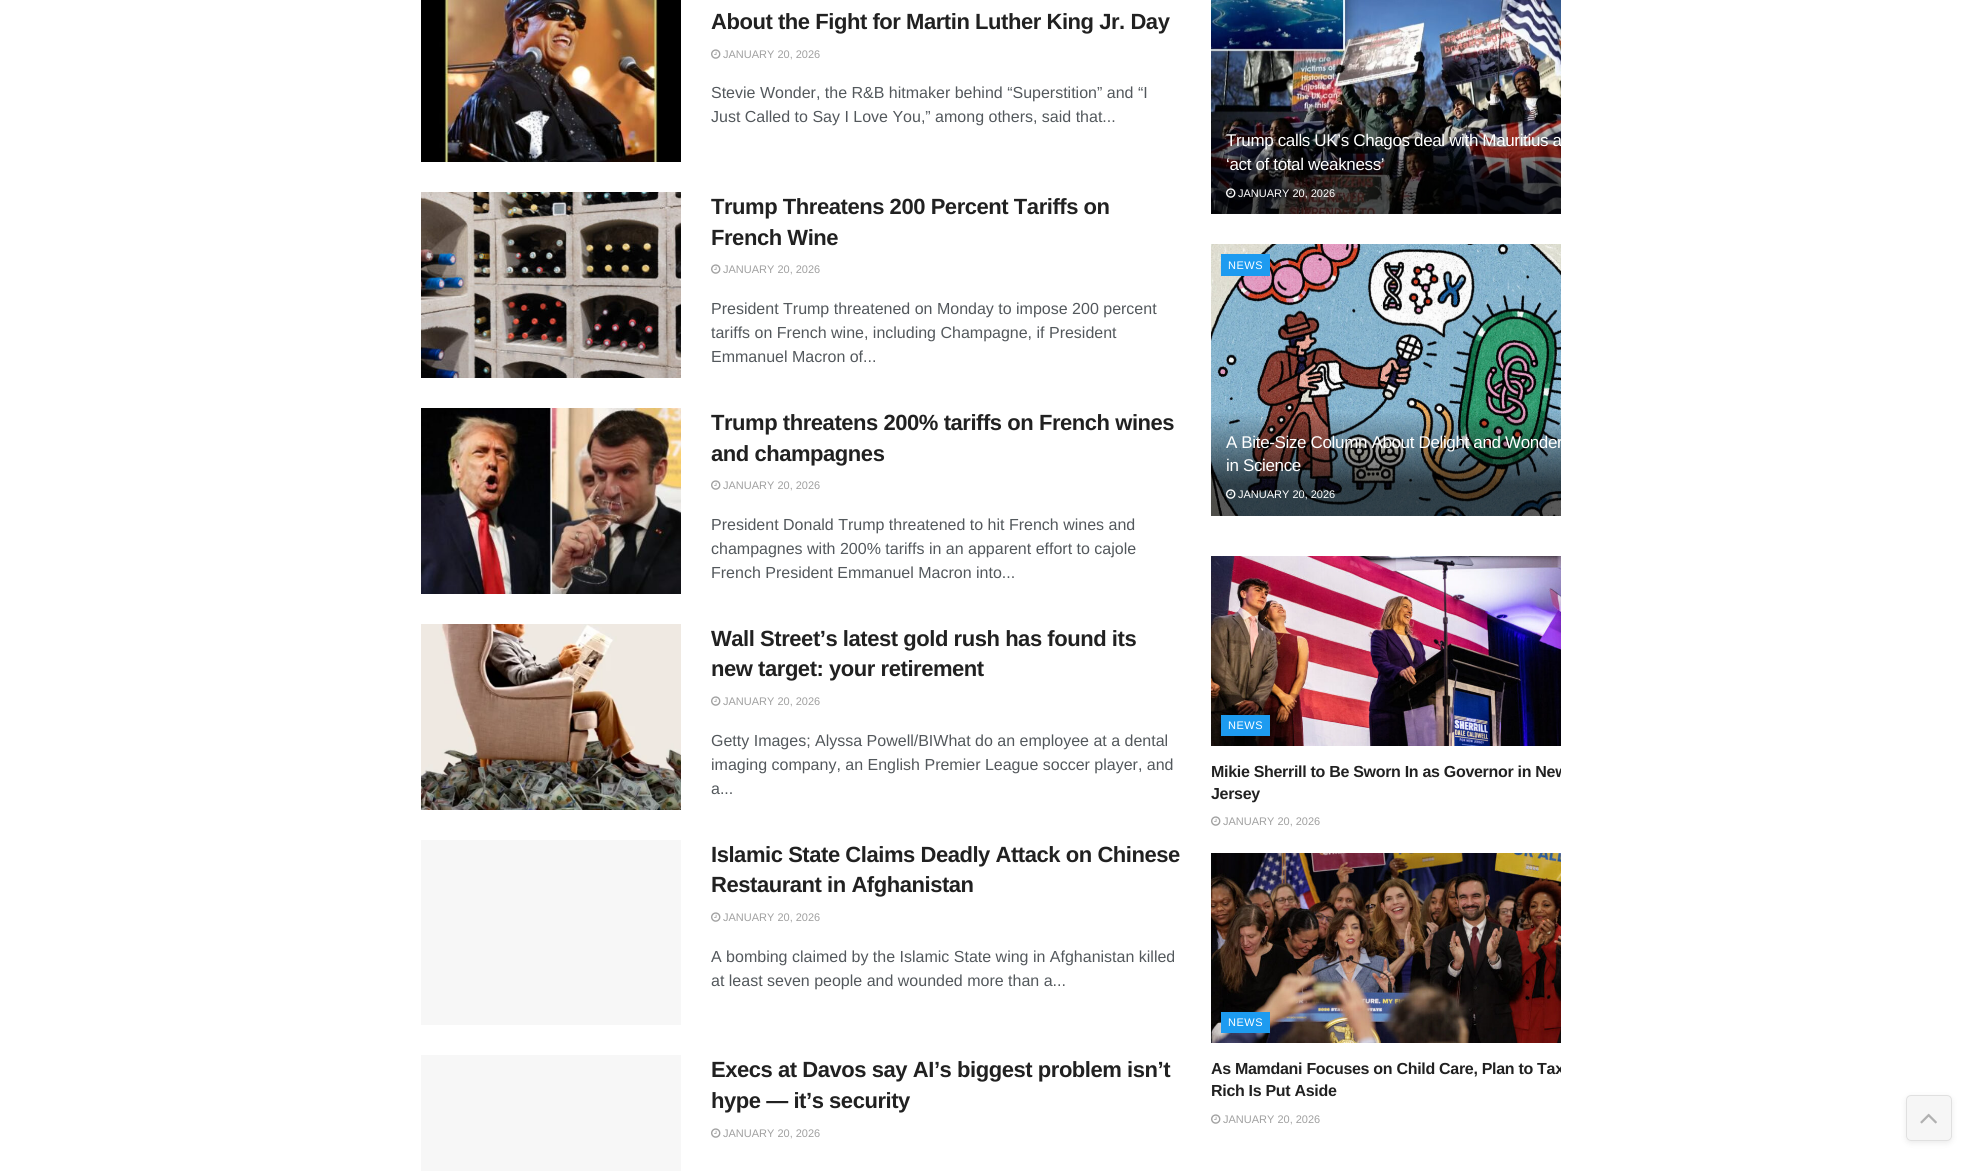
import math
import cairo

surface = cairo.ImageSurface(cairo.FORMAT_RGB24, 1982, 1171)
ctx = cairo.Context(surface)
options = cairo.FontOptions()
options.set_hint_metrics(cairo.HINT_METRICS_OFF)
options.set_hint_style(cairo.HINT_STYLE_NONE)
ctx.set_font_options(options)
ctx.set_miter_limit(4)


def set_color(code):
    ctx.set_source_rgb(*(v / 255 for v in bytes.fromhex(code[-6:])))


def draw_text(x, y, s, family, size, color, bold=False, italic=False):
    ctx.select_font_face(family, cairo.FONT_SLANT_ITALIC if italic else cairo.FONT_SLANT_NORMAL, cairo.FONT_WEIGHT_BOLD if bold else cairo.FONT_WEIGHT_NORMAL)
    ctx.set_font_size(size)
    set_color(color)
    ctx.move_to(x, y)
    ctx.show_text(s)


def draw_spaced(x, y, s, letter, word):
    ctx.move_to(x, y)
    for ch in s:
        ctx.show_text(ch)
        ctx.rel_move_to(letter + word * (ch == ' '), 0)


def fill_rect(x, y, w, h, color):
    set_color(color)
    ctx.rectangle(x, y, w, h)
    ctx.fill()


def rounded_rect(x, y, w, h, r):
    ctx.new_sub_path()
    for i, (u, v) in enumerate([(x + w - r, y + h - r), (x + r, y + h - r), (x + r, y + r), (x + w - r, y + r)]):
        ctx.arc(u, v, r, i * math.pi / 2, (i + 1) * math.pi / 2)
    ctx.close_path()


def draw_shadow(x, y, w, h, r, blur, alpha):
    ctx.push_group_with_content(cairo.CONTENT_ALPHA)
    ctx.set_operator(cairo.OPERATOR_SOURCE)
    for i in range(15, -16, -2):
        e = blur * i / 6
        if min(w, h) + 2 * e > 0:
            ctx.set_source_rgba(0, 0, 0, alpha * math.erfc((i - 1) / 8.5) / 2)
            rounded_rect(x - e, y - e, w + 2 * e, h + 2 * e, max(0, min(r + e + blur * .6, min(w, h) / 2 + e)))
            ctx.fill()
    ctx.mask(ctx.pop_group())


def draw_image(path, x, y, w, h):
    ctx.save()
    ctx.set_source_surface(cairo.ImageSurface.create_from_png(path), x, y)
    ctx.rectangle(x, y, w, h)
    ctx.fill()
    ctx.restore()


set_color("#ffffff")
ctx.paint()
draw_image("assets/img1.png", 421, 0, 260, 162)
ctx.select_font_face("Liberation Sans", cairo.FONT_SLANT_NORMAL, cairo.FONT_WEIGHT_BOLD)
ctx.set_font_size(22)
set_color("#212121")
draw_spaced(711, 29, "About the Fight for Martin Luther King Jr. Day", -0.45, 0)
draw_image("assets/img2.png", 711, 49, 10, 10)
draw_text(723, 58, "JANUARY 20, 2026", "Liberation Sans", 11, "#a0a0a0")
draw_text(711, 98, "Stevie Wonder, the R&B hitmaker behind “Superstition” and “I", "Liberation Sans", 16, "#53585c")
draw_text(711, 122, "Just Called to Say I Love You,” among others, said that...", "Liberation Sans", 16, "#53585c")
draw_image("assets/img3.png", 421, 192, 260, 186)
ctx.select_font_face("Liberation Sans", cairo.FONT_SLANT_NORMAL, cairo.FONT_WEIGHT_BOLD)
ctx.set_font_size(22)
set_color("#212121")
draw_spaced(711, 214, "Trump Threatens 200 Percent Tariffs on", -0.45, 0)
draw_spaced(711, 245, "French Wine", -0.45, 0)
draw_image("assets/img2.png", 711, 264, 10, 10)
draw_text(723, 273, "JANUARY 20, 2026", "Liberation Sans", 11, "#a0a0a0")
draw_text(711, 314, "President Trump threatened on Monday to impose 200 percent", "Liberation Sans", 16, "#53585c")
draw_text(711, 338, "tariffs on French wine, including Champagne, if President", "Liberation Sans", 16, "#53585c")
draw_text(711, 362, "Emmanuel Macron of...", "Liberation Sans", 16, "#53585c")
draw_image("assets/img4.png", 421, 408, 260, 186)
ctx.select_font_face("Liberation Sans", cairo.FONT_SLANT_NORMAL, cairo.FONT_WEIGHT_BOLD)
ctx.set_font_size(22)
set_color("#212121")
draw_spaced(711, 430, "Trump threatens 200% tariffs on French wines", -0.45, 0)
draw_spaced(711, 461, "and champagnes", -0.45, 0)
draw_image("assets/img2.png", 711, 480, 10, 10)
draw_text(723, 489, "JANUARY 20, 2026", "Liberation Sans", 11, "#a0a0a0")
draw_text(711, 530, "President Donald Trump threatened to hit French wines and", "Liberation Sans", 16, "#53585c")
draw_text(711, 554, "champagnes with 200% tariffs in an apparent effort to cajole", "Liberation Sans", 16, "#53585c")
draw_text(711, 578, "French President Emmanuel Macron into...", "Liberation Sans", 16, "#53585c")
draw_image("assets/img5.png", 421, 624, 260, 186)
ctx.select_font_face("Liberation Sans", cairo.FONT_SLANT_NORMAL, cairo.FONT_WEIGHT_BOLD)
ctx.set_font_size(22)
set_color("#212121")
draw_spaced(711, 646, "Wall Street’s latest gold rush has found its", -0.45, 0)
draw_spaced(711, 676, "new target: your retirement", -0.45, 0)
draw_image("assets/img2.png", 711, 696, 10, 10)
draw_text(723, 705, "JANUARY 20, 2026", "Liberation Sans", 11, "#a0a0a0")
draw_text(711, 746, "Getty Images; Alyssa Powell/BIWhat do an employee at a dental", "Liberation Sans", 16, "#53585c")
draw_text(711, 770, "imaging company, an English Premier League soccer player, and", "Liberation Sans", 16, "#53585c")
draw_text(711, 794, "a...", "Liberation Sans", 16, "#53585c")
fill_rect(421, 840, 260, 185, "#f7f7f7")
ctx.select_font_face("Liberation Sans", cairo.FONT_SLANT_NORMAL, cairo.FONT_WEIGHT_BOLD)
ctx.set_font_size(22)
set_color("#212121")
draw_spaced(711, 862, "Islamic State Claims Deadly Attack on Chinese", -0.45, 0)
draw_spaced(711, 892, "Restaurant in Afghanistan", -0.45, 0)
draw_image("assets/img2.png", 711, 912, 10, 10)
draw_text(723, 921, "JANUARY 20, 2026", "Liberation Sans", 11, "#a0a0a0")
draw_text(711, 962, "A bombing claimed by the Islamic State wing in Afghanistan killed", "Liberation Sans", 16, "#53585c")
draw_text(711, 986, "at least seven people and wounded more than a...", "Liberation Sans", 16, "#53585c")
fill_rect(421, 1055, 260, 116, "#f7f7f7")
ctx.select_font_face("Liberation Sans", cairo.FONT_SLANT_NORMAL, cairo.FONT_WEIGHT_BOLD)
ctx.set_font_size(22)
set_color("#212121")
draw_spaced(711, 1077, "Execs at Davos say AI’s biggest problem isn’t", -0.45, 0)
draw_spaced(711, 1108, "hype — it’s security", -0.45, 0)
draw_image("assets/img2.png", 711, 1128, 10, 10)
draw_text(723, 1137, "JANUARY 20, 2026", "Liberation Sans", 11, "#a0a0a0")
draw_image("assets/img6.png", 1211, 0, 350, 214)
gradient = cairo.LinearGradient(1401, 109, 1401, 214)
gradient.add_color_stop_rgba(0, 0, 0, 0, 0)
gradient.add_color_stop_rgba(0.7, 0, 0, 0, 0.65)
ctx.set_source(gradient)
ctx.rectangle(1211, 111, 350, 103)
ctx.fill()
ctx.save()
ctx.rectangle(1211, 0, 350, 214)
ctx.clip()
ctx.set_font_size(17)
set_color("#ffffff")
draw_spaced(1226, 146, "Trump calls UK’s Chagos deal with Mauritius a", -0.35, 0)
ctx.restore()
ctx.set_font_size(17)
set_color("#ffffff")
draw_spaced(1226, 170, "‘act of total weakness’", -0.35, 0)
draw_image("assets/img7.png", 1226, 188, 10, 10)
draw_text(1238, 197, "JANUARY 20, 2026", "Liberation Sans", 11, "#ffffff")
draw_image("assets/img8.png", 1211, 244, 350, 272)
fill_rect(1221, 254, 49, 22, "#1d9bf0")
set_color("#ffffff")
draw_spaced(1228, 269, "NEWS", 0.5, 0)
gradient = cairo.LinearGradient(1401, 411, 1401, 516)
gradient.add_color_stop_rgba(0, 0, 0, 0, 0)
gradient.add_color_stop_rgba(0.7, 0, 0, 0, 0.65)
ctx.set_source(gradient)
ctx.rectangle(1211, 413, 350, 103)
ctx.fill()
ctx.save()
ctx.rectangle(1211, 244, 350, 272)
ctx.clip()
ctx.set_font_size(17)
set_color("#ffffff")
draw_spaced(1226, 448, "A Bite-Size Column About Delight and Wonder", -0.35, 0)
ctx.restore()
ctx.set_font_size(17)
set_color("#ffffff")
draw_spaced(1226, 471, "in Science", -0.35, 0)
draw_image("assets/img9.png", 1226, 489, 10, 10)
draw_text(1238, 498, "JANUARY 20, 2026", "Liberation Sans", 11, "#ffffff")
draw_image("assets/img10.png", 1211, 556, 350, 190)
fill_rect(1221, 715, 49, 21, "#1d9bf0")
set_color("#ffffff")
draw_spaced(1228, 729, "NEWS", 0.5, 0)
ctx.save()
ctx.rectangle(1211, 556, 350, 594)
ctx.clip()
ctx.select_font_face("Liberation Sans", cairo.FONT_SLANT_NORMAL, cairo.FONT_WEIGHT_BOLD)
ctx.set_font_size(16)
set_color("#212121")
draw_spaced(1211, 777, "Mikie Sherrill to Be Sworn In as Governor in New", -0.3, 0)
ctx.restore()
ctx.select_font_face("Liberation Sans", cairo.FONT_SLANT_NORMAL, cairo.FONT_WEIGHT_BOLD)
ctx.set_font_size(16)
set_color("#212121")
draw_spaced(1211, 799, "Jersey", -0.3, 0)
draw_image("assets/img2.png", 1211, 816, 10, 10)
draw_text(1223, 825, "JANUARY 20, 2026", "Liberation Sans", 11, "#a0a0a0")
draw_image("assets/img11.png", 1211, 853, 350, 190)
fill_rect(1221, 1012, 49, 21, "#1d9bf0")
set_color("#ffffff")
draw_spaced(1228, 1026, "NEWS", 0.5, 0)
ctx.save()
ctx.rectangle(1211, 556, 350, 594)
ctx.clip()
ctx.select_font_face("Liberation Sans", cairo.FONT_SLANT_NORMAL, cairo.FONT_WEIGHT_BOLD)
ctx.set_font_size(16)
set_color("#212121")
draw_spaced(1211, 1074, "As Mamdani Focuses on Child Care, Plan to Tax", -0.3, 0)
ctx.restore()
ctx.select_font_face("Liberation Sans", cairo.FONT_SLANT_NORMAL, cairo.FONT_WEIGHT_BOLD)
ctx.set_font_size(16)
set_color("#212121")
draw_spaced(1211, 1096, "Rich Is Put Aside", -0.3, 0)
draw_image("assets/img2.png", 1211, 1114, 10, 10)
draw_text(1223, 1123, "JANUARY 20, 2026", "Liberation Sans", 11, "#a0a0a0")
ctx.save()
ctx.set_fill_rule(cairo.FILL_RULE_EVEN_ODD)
ctx.new_path()
ctx.move_to(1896, 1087)
ctx.line_to(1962, 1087)
ctx.line_to(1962, 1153)
ctx.line_to(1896, 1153)
ctx.close_path()
ctx.move_to(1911, 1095)
ctx.line_to(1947, 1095)
ctx.curve_to(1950, 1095, 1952, 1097, 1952, 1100)
ctx.line_to(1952, 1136)
ctx.curve_to(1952, 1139, 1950, 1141, 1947, 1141)
ctx.line_to(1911, 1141)
ctx.curve_to(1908, 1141, 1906, 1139, 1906, 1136)
ctx.line_to(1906, 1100)
ctx.curve_to(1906, 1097, 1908, 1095, 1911, 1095)
ctx.close_path()
ctx.clip()
set_color("#333333")
draw_shadow(1906, 1097, 46, 46, 5, 3, 0.1)
ctx.restore()
ctx.set_source_rgba(0.765, 0.765, 0.765, 0.15)
rounded_rect(1906, 1095, 46, 46, 5)
ctx.fill()
rounded_rect(1906.5, 1095.5, 45, 45, 4.5)
ctx.set_source_rgba(0.2, 0.2, 0.2, 0.11)
ctx.set_line_width(1)
ctx.stroke()
draw_image("assets/img12.png", 1920, 1113, 17, 11)
surface.write_to_png("output.png")
